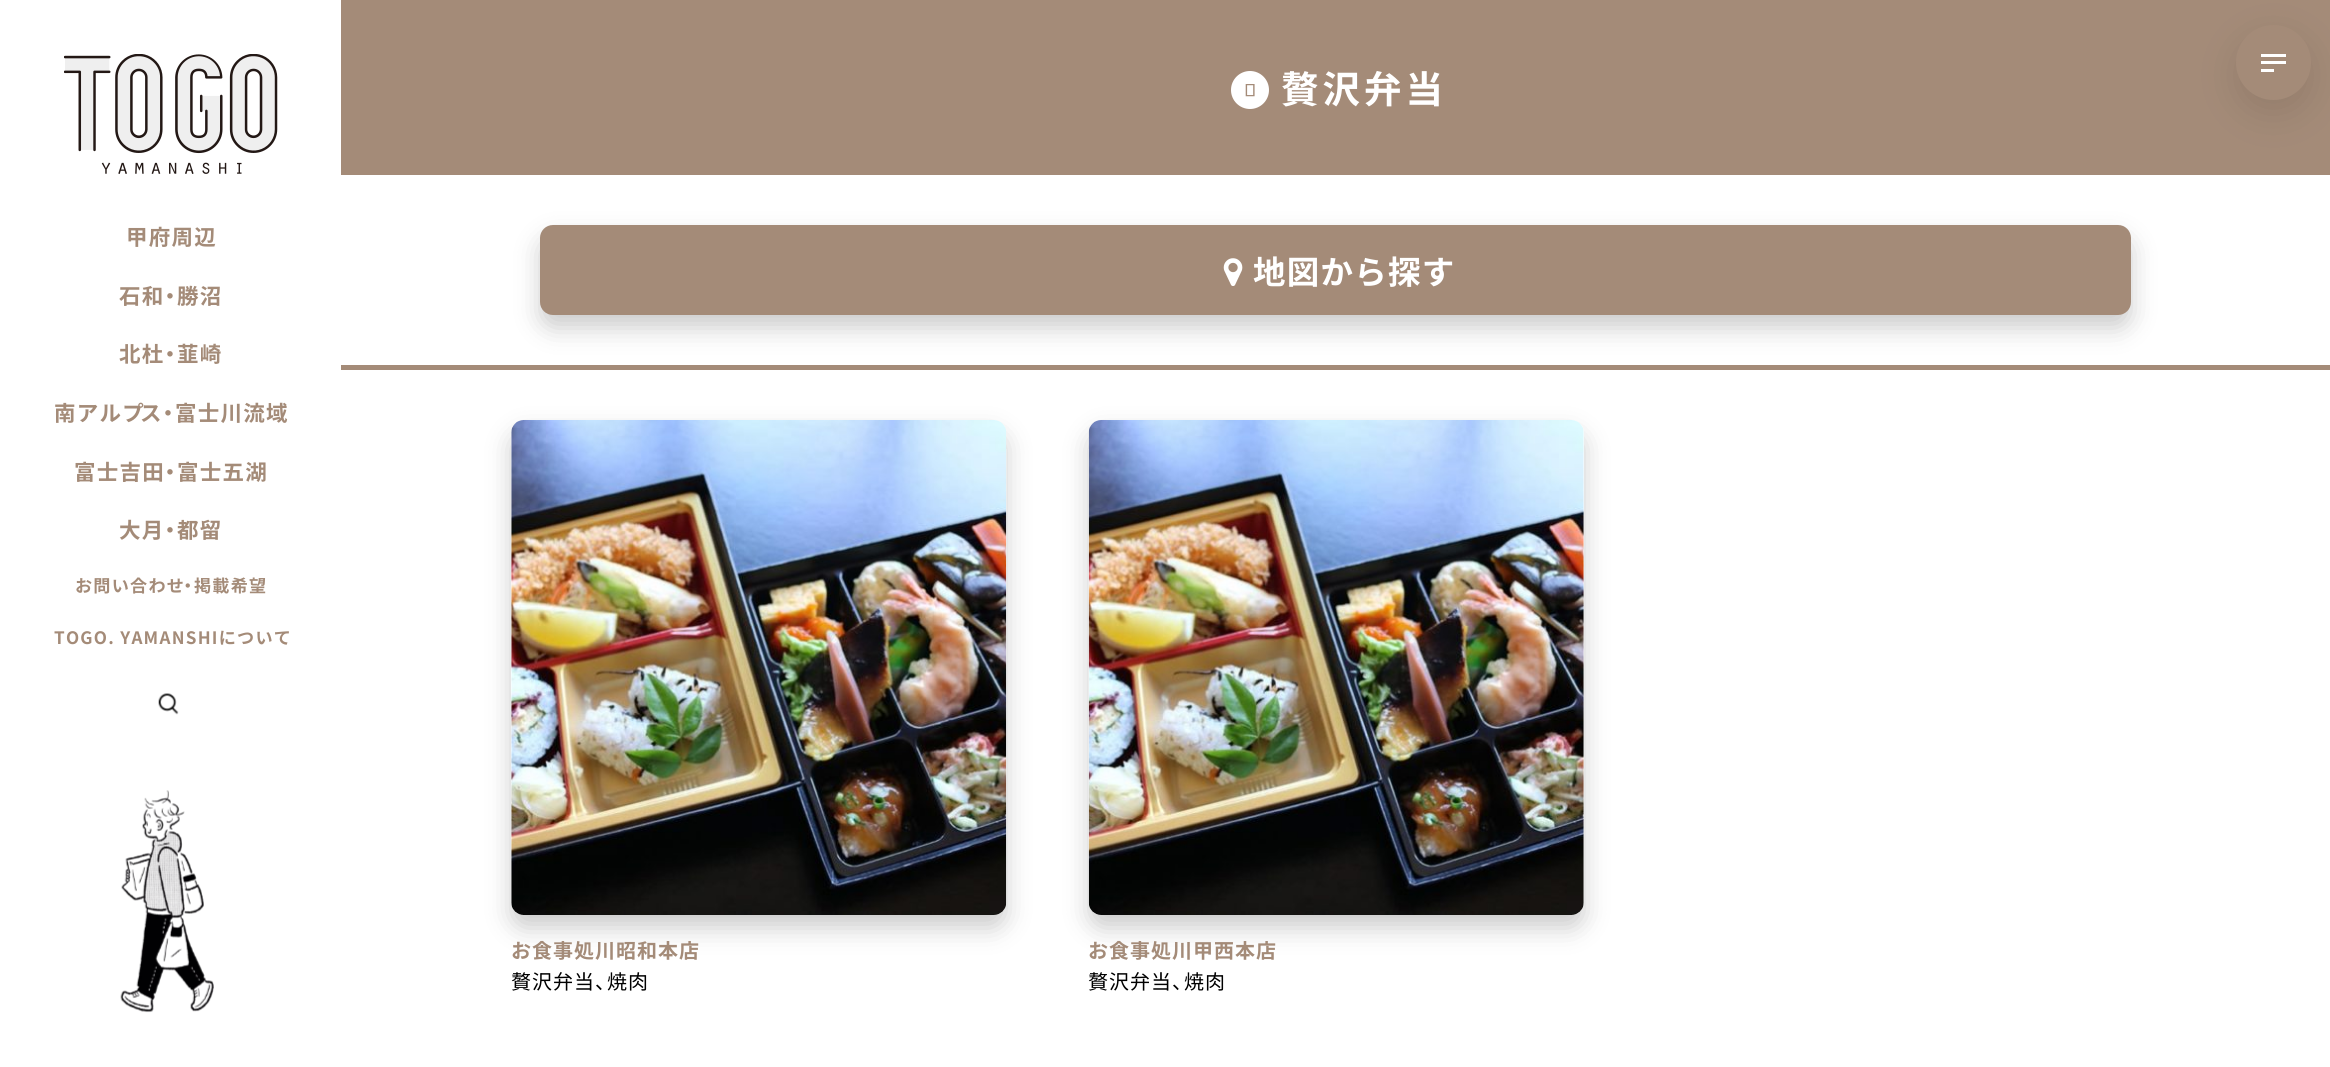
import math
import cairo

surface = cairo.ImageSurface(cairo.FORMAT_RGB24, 2330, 1067)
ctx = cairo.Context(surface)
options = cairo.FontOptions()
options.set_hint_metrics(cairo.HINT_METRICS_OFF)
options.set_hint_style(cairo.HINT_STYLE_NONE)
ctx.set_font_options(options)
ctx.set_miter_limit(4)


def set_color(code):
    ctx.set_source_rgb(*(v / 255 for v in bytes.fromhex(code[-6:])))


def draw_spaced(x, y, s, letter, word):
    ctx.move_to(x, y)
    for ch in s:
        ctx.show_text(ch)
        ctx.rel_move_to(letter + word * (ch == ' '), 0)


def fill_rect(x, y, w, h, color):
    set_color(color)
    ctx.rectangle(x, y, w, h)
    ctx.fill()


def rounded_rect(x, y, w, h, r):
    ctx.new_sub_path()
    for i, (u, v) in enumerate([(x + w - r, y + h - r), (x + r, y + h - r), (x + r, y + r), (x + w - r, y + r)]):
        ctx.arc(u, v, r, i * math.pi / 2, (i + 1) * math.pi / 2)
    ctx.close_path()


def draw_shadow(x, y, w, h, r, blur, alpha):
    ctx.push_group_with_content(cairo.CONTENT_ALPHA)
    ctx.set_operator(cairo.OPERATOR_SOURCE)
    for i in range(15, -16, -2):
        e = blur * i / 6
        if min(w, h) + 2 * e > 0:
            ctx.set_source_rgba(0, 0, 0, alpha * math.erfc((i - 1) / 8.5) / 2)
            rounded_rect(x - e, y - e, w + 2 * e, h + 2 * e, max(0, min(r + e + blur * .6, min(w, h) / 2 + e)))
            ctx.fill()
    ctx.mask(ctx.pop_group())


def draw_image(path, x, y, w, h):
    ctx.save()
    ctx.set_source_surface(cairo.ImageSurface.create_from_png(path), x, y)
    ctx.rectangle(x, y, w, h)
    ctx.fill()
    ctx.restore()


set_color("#ffffff")
ctx.paint()
draw_image("assets/img1.png", 64, 54, 214, 120)
ctx.select_font_face("Noto Sans CJK JP", cairo.FONT_SLANT_NORMAL, cairo.FONT_WEIGHT_BOLD)
ctx.set_font_size(21.5)
set_color("#a48b78")
draw_spaced(126, 245, "甲府周辺", 1.25, 0)
draw_spaced(119, 304, "石和", 1.25, 0)
ctx.select_font_face("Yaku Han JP", cairo.FONT_SLANT_NORMAL, cairo.FONT_WEIGHT_BOLD)
draw_spaced(164, 304, "・", 1.25, 0)
ctx.select_font_face("Noto Sans CJK JP", cairo.FONT_SLANT_NORMAL, cairo.FONT_WEIGHT_BOLD)
draw_spaced(177, 304, "勝沼", 1.25, 0)
draw_spaced(119, 362, "北杜", 1.25, 0)
ctx.select_font_face("Yaku Han JP", cairo.FONT_SLANT_NORMAL, cairo.FONT_WEIGHT_BOLD)
draw_spaced(164, 362, "・", 1.25, 0)
ctx.select_font_face("Noto Sans CJK JP", cairo.FONT_SLANT_NORMAL, cairo.FONT_WEIGHT_BOLD)
draw_spaced(177, 362, "韮崎", 1.25, 0)
draw_spaced(54, 421, "南アルプ", 1.25, 0)
draw_spaced(140, 421, "ス", 1.25, 0)
ctx.select_font_face("Yaku Han JP", cairo.FONT_SLANT_NORMAL, cairo.FONT_WEIGHT_BOLD)
draw_spaced(162, 421, "・", 1.25, 0)
ctx.select_font_face("Noto Sans CJK JP", cairo.FONT_SLANT_NORMAL, cairo.FONT_WEIGHT_BOLD)
draw_spaced(175, 421, "富士川流域", 1.25, 0)
draw_spaced(74, 480, "富士吉田", 1.25, 0)
ctx.select_font_face("Yaku Han JP", cairo.FONT_SLANT_NORMAL, cairo.FONT_WEIGHT_BOLD)
draw_spaced(164, 480, "・", 1.25, 0)
ctx.select_font_face("Noto Sans CJK JP", cairo.FONT_SLANT_NORMAL, cairo.FONT_WEIGHT_BOLD)
draw_spaced(177, 480, "富士五湖", 1.25, 0)
draw_spaced(119, 538, "大月", 1.25, 0)
ctx.select_font_face("Yaku Han JP", cairo.FONT_SLANT_NORMAL, cairo.FONT_WEIGHT_BOLD)
draw_spaced(164, 538, "・", 1.25, 0)
ctx.select_font_face("Noto Sans CJK JP", cairo.FONT_SLANT_NORMAL, cairo.FONT_WEIGHT_BOLD)
draw_spaced(177, 538, "都留", 1.25, 0)
ctx.set_font_size(17.1)
draw_spaced(75, 592, "お問い合わせ", 1.25, 0)
ctx.select_font_face("Yaku Han JP", cairo.FONT_SLANT_NORMAL, cairo.FONT_WEIGHT_BOLD)
draw_spaced(183, 592, "・", 1.25, 0)
ctx.select_font_face("Noto Sans CJK JP", cairo.FONT_SLANT_NORMAL, cairo.FONT_WEIGHT_BOLD)
draw_spaced(194, 592, "掲載希望", 1.25, 0)
draw_spaced(54, 644, "TOGO. YAMANSHIについて", 1.25, 0)
draw_image("assets/img2.png", 158, 693, 21, 22)
draw_image("assets/img3.png", 120, 790, 94, 223)
fill_rect(341, 0, 1989, 175, "#a48b78")
set_color("#ffffff")
ctx.arc(1250, 90, 19, 0, 2 * math.pi)
ctx.fill()
draw_image("assets/img4.png", 1245, 84, 10, 13)
ctx.set_font_size(37.5)
draw_spaced(1281, 103, "贅沢弁当", 4, 0)
set_color("#000000")
draw_shadow(540, 238, 1591, 90, 13, 12.5, 0.2)
set_color("#a48b78")
rounded_rect(540, 225, 1591, 90, 13)
ctx.fill()
draw_image("assets/img5.png", 1223, 258, 20, 28)
ctx.set_font_size(32.5)
set_color("#ffffff")
draw_spaced(1253, 284, "地図から探す", 1.25, 0)
fill_rect(341, 365, 1989, 5, "#a48b78")
set_color("#000000")
draw_shadow(511, 433, 495, 495, 13, 12.5, 0.2)
set_color("#ffffff")
rounded_rect(511, 420, 495, 495, 13)
ctx.fill()
draw_image("assets/img6.png", 520, 449, 487, 466)
draw_image("assets/img7.png", 511, 420, 496, 495)
ctx.set_font_size(20)
set_color("#a48b78")
draw_spaced(511, 958, "お食事処川昭和本店", 1, 0)
ctx.select_font_face("Noto Sans JP")
set_color("#000000")
draw_spaced(511, 989, "贅沢弁当", 1, 0)
ctx.select_font_face("Yaku Han JP")
draw_spaced(595, 989, "、", 1, 0)
ctx.select_font_face("Noto Sans JP")
draw_spaced(607, 989, "焼肉", 1, 0)
set_color("#000000")
draw_shadow(1089, 433, 495, 495, 13, 12.5, 0.2)
set_color("#ffffff")
rounded_rect(1089, 420, 495, 495, 13)
ctx.fill()
draw_image("assets/img8.png", 1088, 449, 488, 466)
draw_image("assets/img9.png", 1088, 420, 496, 495)
ctx.select_font_face("Noto Sans CJK JP", cairo.FONT_SLANT_NORMAL, cairo.FONT_WEIGHT_BOLD)
set_color("#a48b78")
draw_spaced(1088, 958, "お食事処川甲西本店", 1, 0)
ctx.select_font_face("Noto Sans JP")
set_color("#000000")
draw_spaced(1088, 989, "贅沢弁当", 1, 0)
ctx.select_font_face("Yaku Han JP")
draw_spaced(1172, 989, "、", 1, 0)
ctx.select_font_face("Noto Sans JP")
draw_spaced(1184, 989, "焼肉", 1, 0)
set_color("#000000")
draw_shadow(2236, 38, 75, 75, 37.5, 19, 0.1)
set_color("#a48b78")
ctx.arc(2273.5, 62.5, 37.5, 0, 2 * math.pi)
ctx.fill()
fill_rect(2261, 54, 25, 3, "#ffffff")
fill_rect(2261, 61, 25, 3, "#ffffff")
fill_rect(2261, 69, 13, 3, "#ffffff")
surface.write_to_png("output.png")
